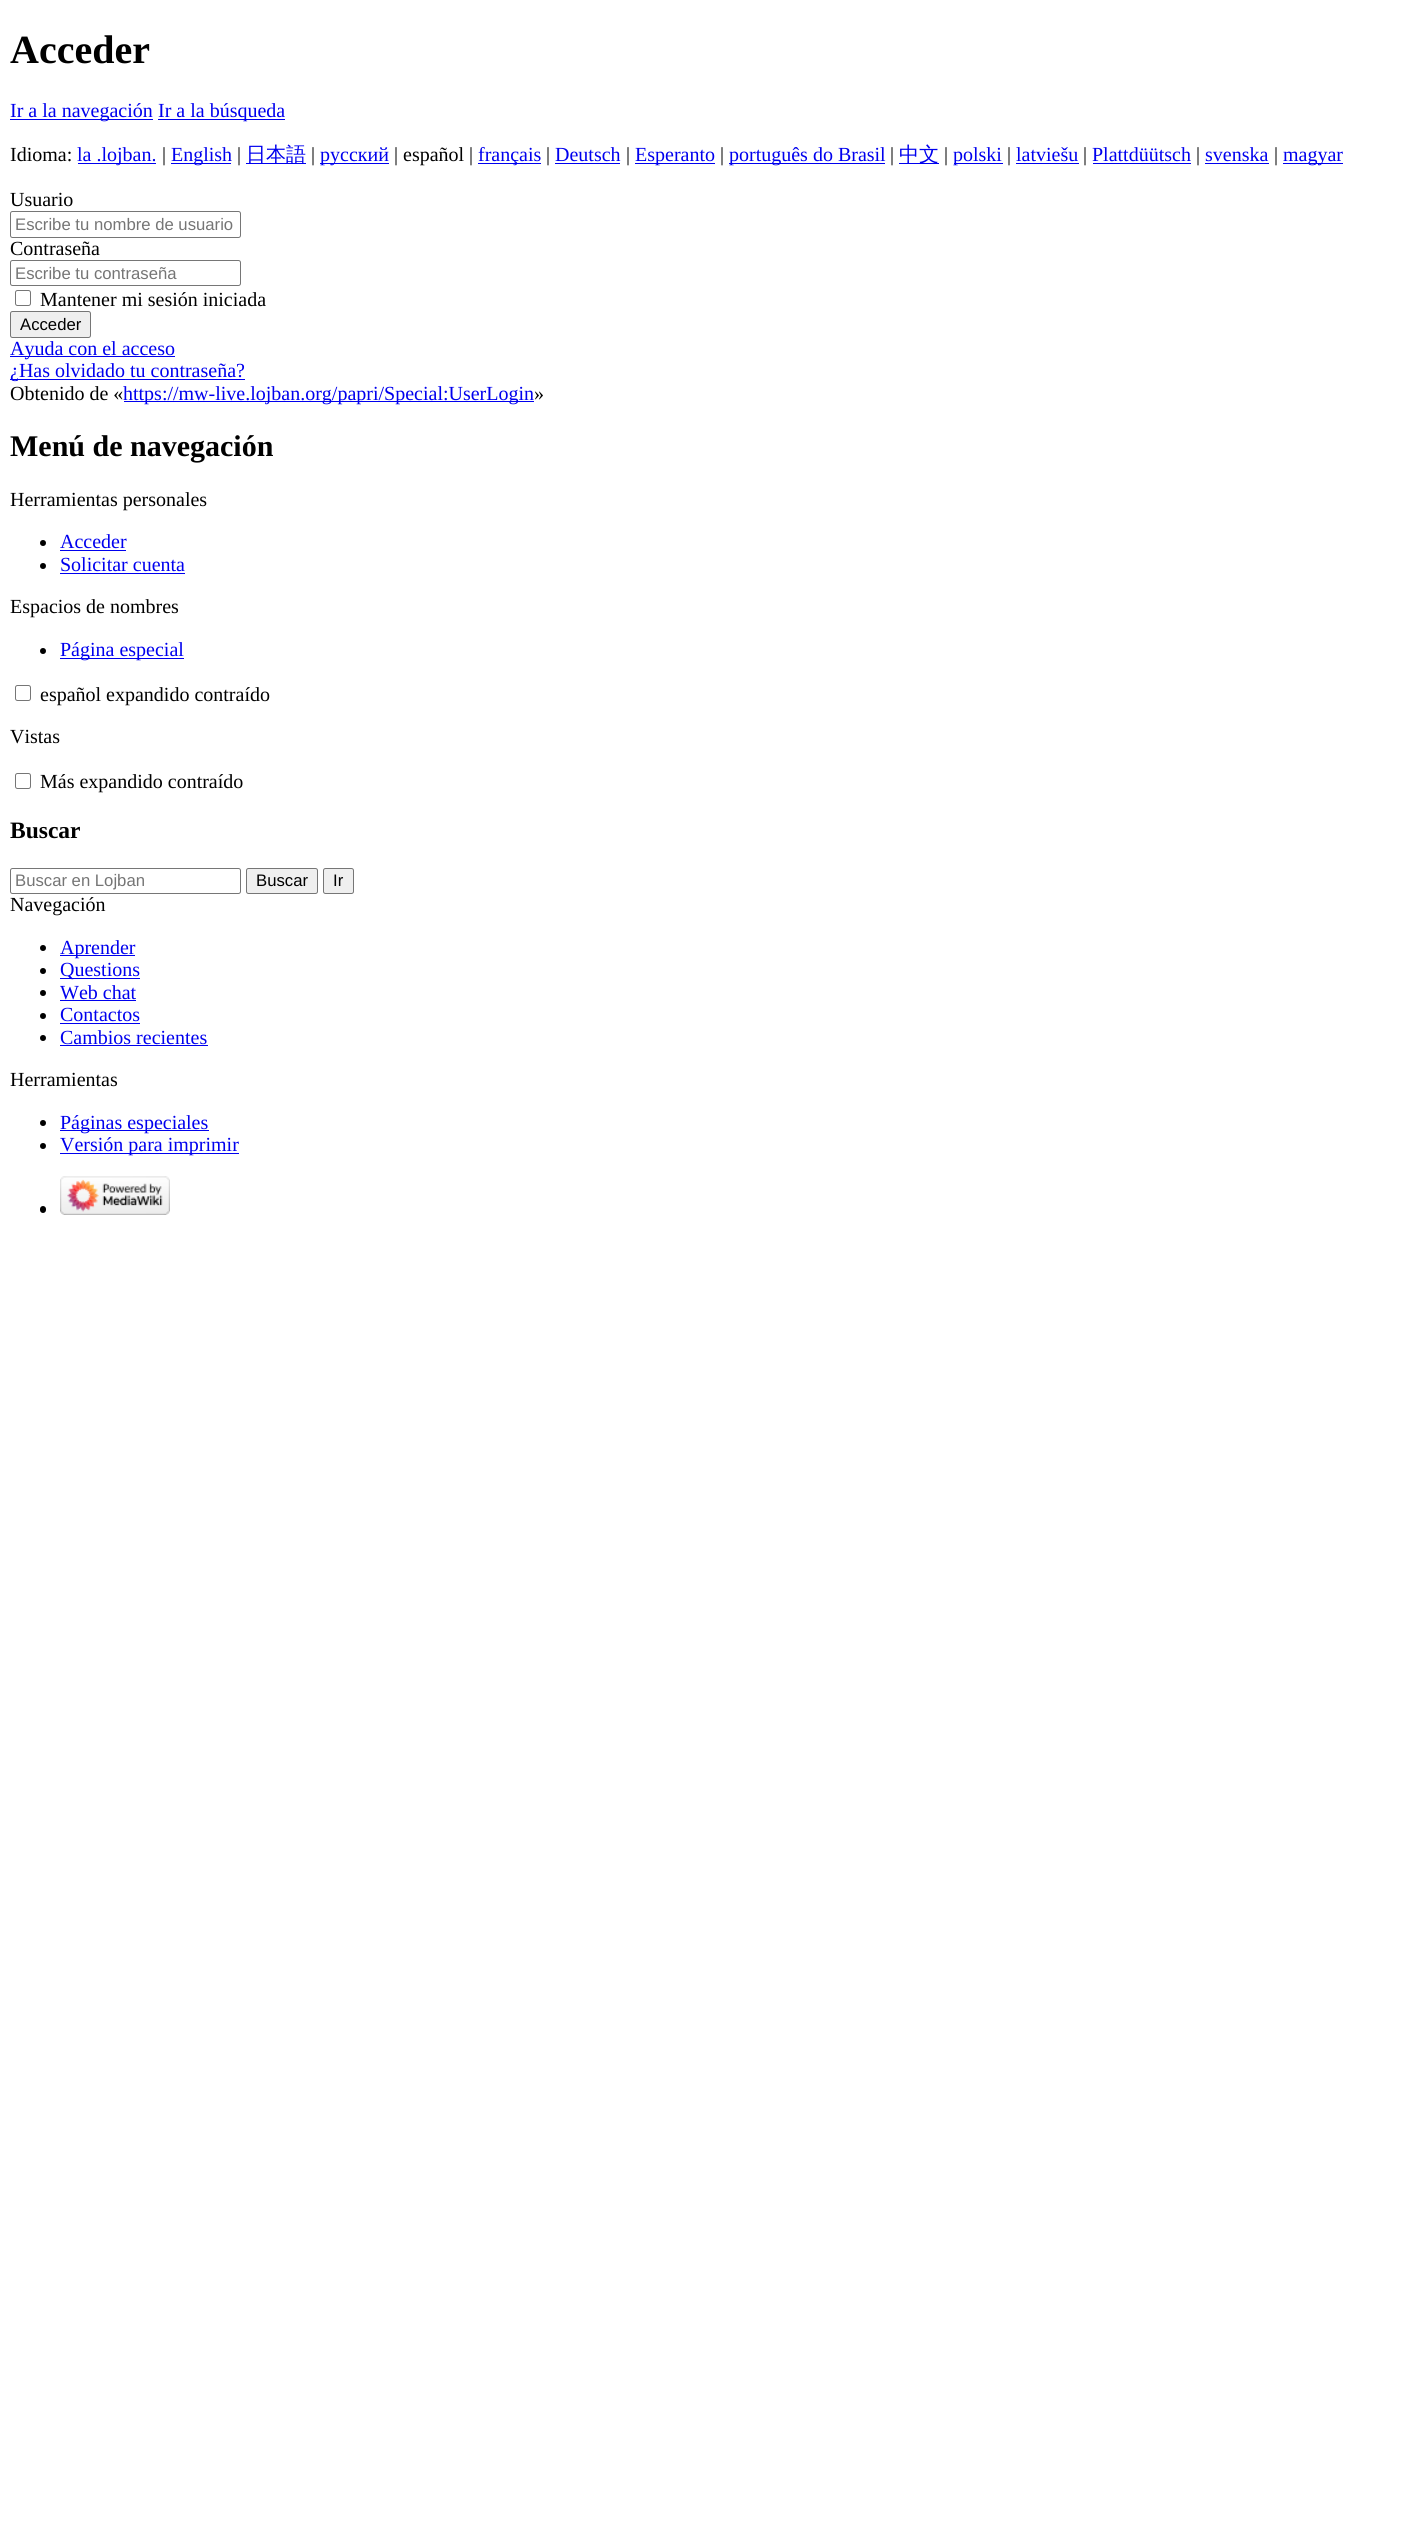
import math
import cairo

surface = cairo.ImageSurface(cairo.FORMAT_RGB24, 1403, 2548)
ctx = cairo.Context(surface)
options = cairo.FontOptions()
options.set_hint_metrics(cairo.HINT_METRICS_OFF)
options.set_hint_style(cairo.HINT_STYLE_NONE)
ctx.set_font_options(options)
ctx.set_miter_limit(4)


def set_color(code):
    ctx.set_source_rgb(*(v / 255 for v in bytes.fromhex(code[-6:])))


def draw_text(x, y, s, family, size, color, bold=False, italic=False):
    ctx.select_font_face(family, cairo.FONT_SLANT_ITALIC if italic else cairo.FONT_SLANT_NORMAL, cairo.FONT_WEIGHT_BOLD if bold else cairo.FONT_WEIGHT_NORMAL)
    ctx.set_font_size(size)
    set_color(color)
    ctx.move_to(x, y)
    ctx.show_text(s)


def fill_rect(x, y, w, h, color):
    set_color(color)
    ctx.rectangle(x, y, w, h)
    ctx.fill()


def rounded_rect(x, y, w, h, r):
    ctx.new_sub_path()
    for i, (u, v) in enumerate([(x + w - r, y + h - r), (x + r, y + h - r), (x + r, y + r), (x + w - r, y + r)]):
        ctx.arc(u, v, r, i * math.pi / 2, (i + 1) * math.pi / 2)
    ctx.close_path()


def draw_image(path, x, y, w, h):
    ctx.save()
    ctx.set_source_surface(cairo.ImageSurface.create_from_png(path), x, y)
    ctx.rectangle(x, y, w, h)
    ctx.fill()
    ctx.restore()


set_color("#ffffff")
ctx.paint()
draw_text(10, 63, "Acceder", "Liberation Serif", 40, "#000000", bold=True)
fill_rect(10, 119, 143, 1, "#0000ee")
draw_text(10, 117, "Ir a la navegación", "Liberation Serif", 20, "#0000ee")
fill_rect(158, 119, 127, 1, "#0000ee")
draw_text(158, 117, "Ir a la búsqueda", "Liberation Serif", 20, "#0000ee")
draw_text(10, 161, "Idioma:", "Liberation Serif", 20, "#000000")
fill_rect(78, 163, 78, 1, "#0000ee")
draw_text(77, 161, "la .lojban.", "Liberation Serif", 20, "#0000ee")
draw_text(162, 161, "|", "Liberation Serif", 20, "#000000")
fill_rect(171, 163, 60, 1, "#0000ee")
draw_text(171, 161, "English", "Liberation Serif", 20, "#0000ee")
draw_text(237, 161, "|", "Liberation Serif", 20, "#000000")
fill_rect(246, 163, 60, 1, "#0000ee")
draw_text(246, 161, "日本語", "WenQuanYi Zen Hei Medium", 20, "#0000ee")
draw_text(311, 161, "|", "Liberation Serif", 20, "#000000")
fill_rect(320, 163, 69, 1, "#0000ee")
draw_text(320, 161, "русский", "Liberation Serif", 20, "#0000ee")
draw_text(394, 161, "| español |", "Liberation Serif", 20, "#000000")
fill_rect(478, 163, 63, 1, "#0000ee")
draw_text(478, 161, "français", "Liberation Serif", 20, "#0000ee")
draw_text(546, 161, "|", "Liberation Serif", 20, "#000000")
draw_text(555, 161, "Deutsch", "Liberation Serif", 20, "#0000ee")
fill_rect(555, 163, 65, 1, "#0000ee")
draw_text(626, 161, "|", "Liberation Serif", 20, "#000000")
fill_rect(635, 163, 80, 1, "#0000ee")
draw_text(635, 161, "Esperanto", "Liberation Serif", 20, "#0000ee")
draw_text(720, 161, "|", "Liberation Serif", 20, "#000000")
fill_rect(729, 163, 156, 1, "#0000ee")
draw_text(729, 161, "português do Brasil", "Liberation Serif", 20, "#0000ee")
draw_text(890, 161, "|", "Liberation Serif", 20, "#000000")
fill_rect(899, 163, 40, 1, "#0000ee")
draw_text(899, 161, "中文", "WenQuanYi Zen Hei Medium", 20, "#0000ee")
draw_text(944, 161, "|", "Liberation Serif", 20, "#000000")
fill_rect(954, 163, 49, 1, "#0000ee")
draw_text(953, 161, "polski", "Liberation Serif", 20, "#0000ee")
draw_text(1007, 161, "|", "Liberation Serif", 20, "#000000")
draw_text(1016, 161, "latviešu", "Liberation Serif", 20, "#0000ee")
fill_rect(1016, 163, 63, 1, "#0000ee")
draw_text(1083, 161, "|", "Liberation Serif", 20, "#000000")
draw_text(1092, 161, "Plattdüütsch", "Liberation Serif", 20, "#0000ee")
fill_rect(1093, 163, 98, 1, "#0000ee")
draw_text(1196, 161, "|", "Liberation Serif", 20, "#000000")
draw_text(1205, 161, "svenska", "Liberation Serif", 20, "#0000ee")
fill_rect(1205, 163, 64, 1, "#0000ee")
draw_text(1274, 161, "|", "Liberation Serif", 20, "#000000")
fill_rect(1283, 163, 60, 1, "#0000ee")
draw_text(1283, 161, "magyar", "Liberation Serif", 20, "#0000ee")
draw_text(10, 206, "Usuario", "Liberation Serif", 20, "#000000")
rounded_rect(10.5, 211.5, 230, 26, 2)
set_color("#767676")
ctx.set_line_width(1)
ctx.stroke()
draw_text(15, 230, "Escribe tu nombre de usuario", "Liberation Sans", 16.7, "#757575")
draw_text(10, 255, "Contraseña", "Liberation Serif", 20, "#000000")
rounded_rect(10.5, 260.5, 230, 25, 2)
set_color("#767676")
ctx.stroke()
draw_text(15, 279, "Escribe tu contraseña", "Liberation Sans", 16.7, "#757575")
rounded_rect(15.5, 290.5, 15, 15, 2)
set_color("#767676")
ctx.stroke()
draw_text(40, 306, "Mantener mi sesión iniciada", "Liberation Serif", 20, "#000000")
set_color("#efefef")
rounded_rect(10.5, 311.5, 80, 26, 2)
ctx.fill_preserve()
set_color("#767676")
ctx.stroke()
draw_text(20, 330, "Acceder", "Liberation Sans", 16.7, "#000000")
fill_rect(10, 356, 165, 1, "#0000ee")
draw_text(10, 355, "Ayuda con el acceso", "Liberation Serif", 20, "#0000ee")
fill_rect(10, 379, 235, 1, "#0000ee")
draw_text(10, 377, "¿Has olvidado tu contraseña?", "Liberation Serif", 20, "#0000ee")
draw_text(10, 400, "Obtenido de «", "Liberation Serif", 20, "#000000")
fill_rect(124, 401, 410, 1, "#0000ee")
draw_text(123, 400, "https://mw-live.lojban.org/papri/Special:UserLogin", "Liberation Serif", 20, "#0000ee")
draw_text(534, 400, "»", "Liberation Serif", 20, "#000000")
draw_text(10, 456, "Menú de navegación", "Liberation Serif", 30, "#000000", bold=True)
draw_text(10, 506, "Herramientas personales", "Liberation Serif", 20, "#000000")
ctx.new_path()
ctx.arc(43, 543, 3, 0, 2 * math.pi)
ctx.fill()
draw_text(60, 548, "Acceder", "Liberation Serif", 20, "#0000ee")
fill_rect(60, 550, 66, 1, "#0000ee")
set_color("#000000")
ctx.new_path()
ctx.arc(43, 566, 3, 0, 2 * math.pi)
ctx.fill()
draw_text(60, 571, "Solicitar cuenta", "Liberation Serif", 20, "#0000ee")
fill_rect(60, 573, 125, 1, "#0000ee")
draw_text(10, 613, "Espacios de nombres", "Liberation Serif", 20, "#000000")
ctx.new_path()
ctx.arc(43, 651, 3, 0, 2 * math.pi)
ctx.fill()
fill_rect(60, 658, 124, 1, "#0000ee")
draw_text(60, 656, "Página especial", "Liberation Serif", 20, "#0000ee")
rounded_rect(15.5, 685.5, 15, 15, 2)
set_color("#767676")
ctx.stroke()
draw_text(40, 701, "español expandido contraído", "Liberation Serif", 20, "#000000")
draw_text(10, 743, "Vistas", "Liberation Serif", 20, "#000000")
rounded_rect(15.5, 773.5, 15, 15, 2)
set_color("#767676")
ctx.stroke()
draw_text(40, 788, "Más expandido contraído", "Liberation Serif", 20, "#000000")
draw_text(10, 838, "Buscar", "Liberation Serif", 23.5, "#000000", bold=True)
rounded_rect(10.5, 868.5, 230, 25, 2)
set_color("#767676")
ctx.stroke()
draw_text(15, 886, "Buscar en Lojban", "Liberation Sans", 16.7, "#757575")
set_color("#efefef")
rounded_rect(246.5, 868.5, 71, 25, 2)
ctx.fill_preserve()
set_color("#767676")
ctx.stroke()
draw_text(256, 886, "Buscar", "Liberation Sans", 16.7, "#000000")
set_color("#efefef")
rounded_rect(323.5, 868.5, 30, 25, 2)
ctx.fill_preserve()
set_color("#767676")
ctx.stroke()
draw_text(333, 886, "Ir", "Liberation Sans", 16.7, "#000000")
draw_text(10, 911, "Navegación", "Liberation Serif", 20, "#000000")
ctx.new_path()
ctx.arc(43, 948, 3, 0, 2 * math.pi)
ctx.fill()
fill_rect(60, 955, 75, 1, "#0000ee")
draw_text(60, 954, "Aprender", "Liberation Serif", 20, "#0000ee")
set_color("#000000")
ctx.new_path()
ctx.arc(43, 971, 3, 0, 2 * math.pi)
ctx.fill()
fill_rect(60, 978, 80, 1, "#0000ee")
draw_text(60, 976, "Questions", "Liberation Serif", 20, "#0000ee")
set_color("#000000")
ctx.new_path()
ctx.arc(43, 993, 3, 0, 2 * math.pi)
ctx.fill()
draw_text(60, 999, "Web chat", "Liberation Serif", 20, "#0000ee")
fill_rect(60, 1000, 76, 1, "#0000ee")
set_color("#000000")
ctx.new_path()
ctx.arc(43, 1016, 3, 0, 2 * math.pi)
ctx.fill()
draw_text(60, 1021, "Contactos", "Liberation Serif", 20, "#0000ee")
fill_rect(60, 1023, 80, 1, "#0000ee")
set_color("#000000")
ctx.new_path()
ctx.arc(43, 1038, 3, 0, 2 * math.pi)
ctx.fill()
draw_text(60, 1044, "Cambios recientes", "Liberation Serif", 20, "#0000ee")
fill_rect(60, 1045, 148, 1, "#0000ee")
draw_text(10, 1086, "Herramientas", "Liberation Serif", 20, "#000000")
ctx.new_path()
ctx.arc(43, 1123, 3, 0, 2 * math.pi)
ctx.fill()
fill_rect(60, 1130, 149, 1, "#0000ee")
draw_text(60, 1129, "Páginas especiales", "Liberation Serif", 20, "#0000ee")
set_color("#000000")
ctx.new_path()
ctx.arc(43, 1146, 3, 0, 2 * math.pi)
ctx.fill()
fill_rect(60, 1153, 179, 1, "#0000ee")
draw_text(60, 1151, "Versión para imprimir", "Liberation Serif", 20, "#0000ee")
set_color("#000000")
rounded_rect(40, 1206, 6, 7, 3)
ctx.fill()
draw_image("assets/img1.png", 60, 1176, 110, 39)
surface.write_to_png("output.png")
